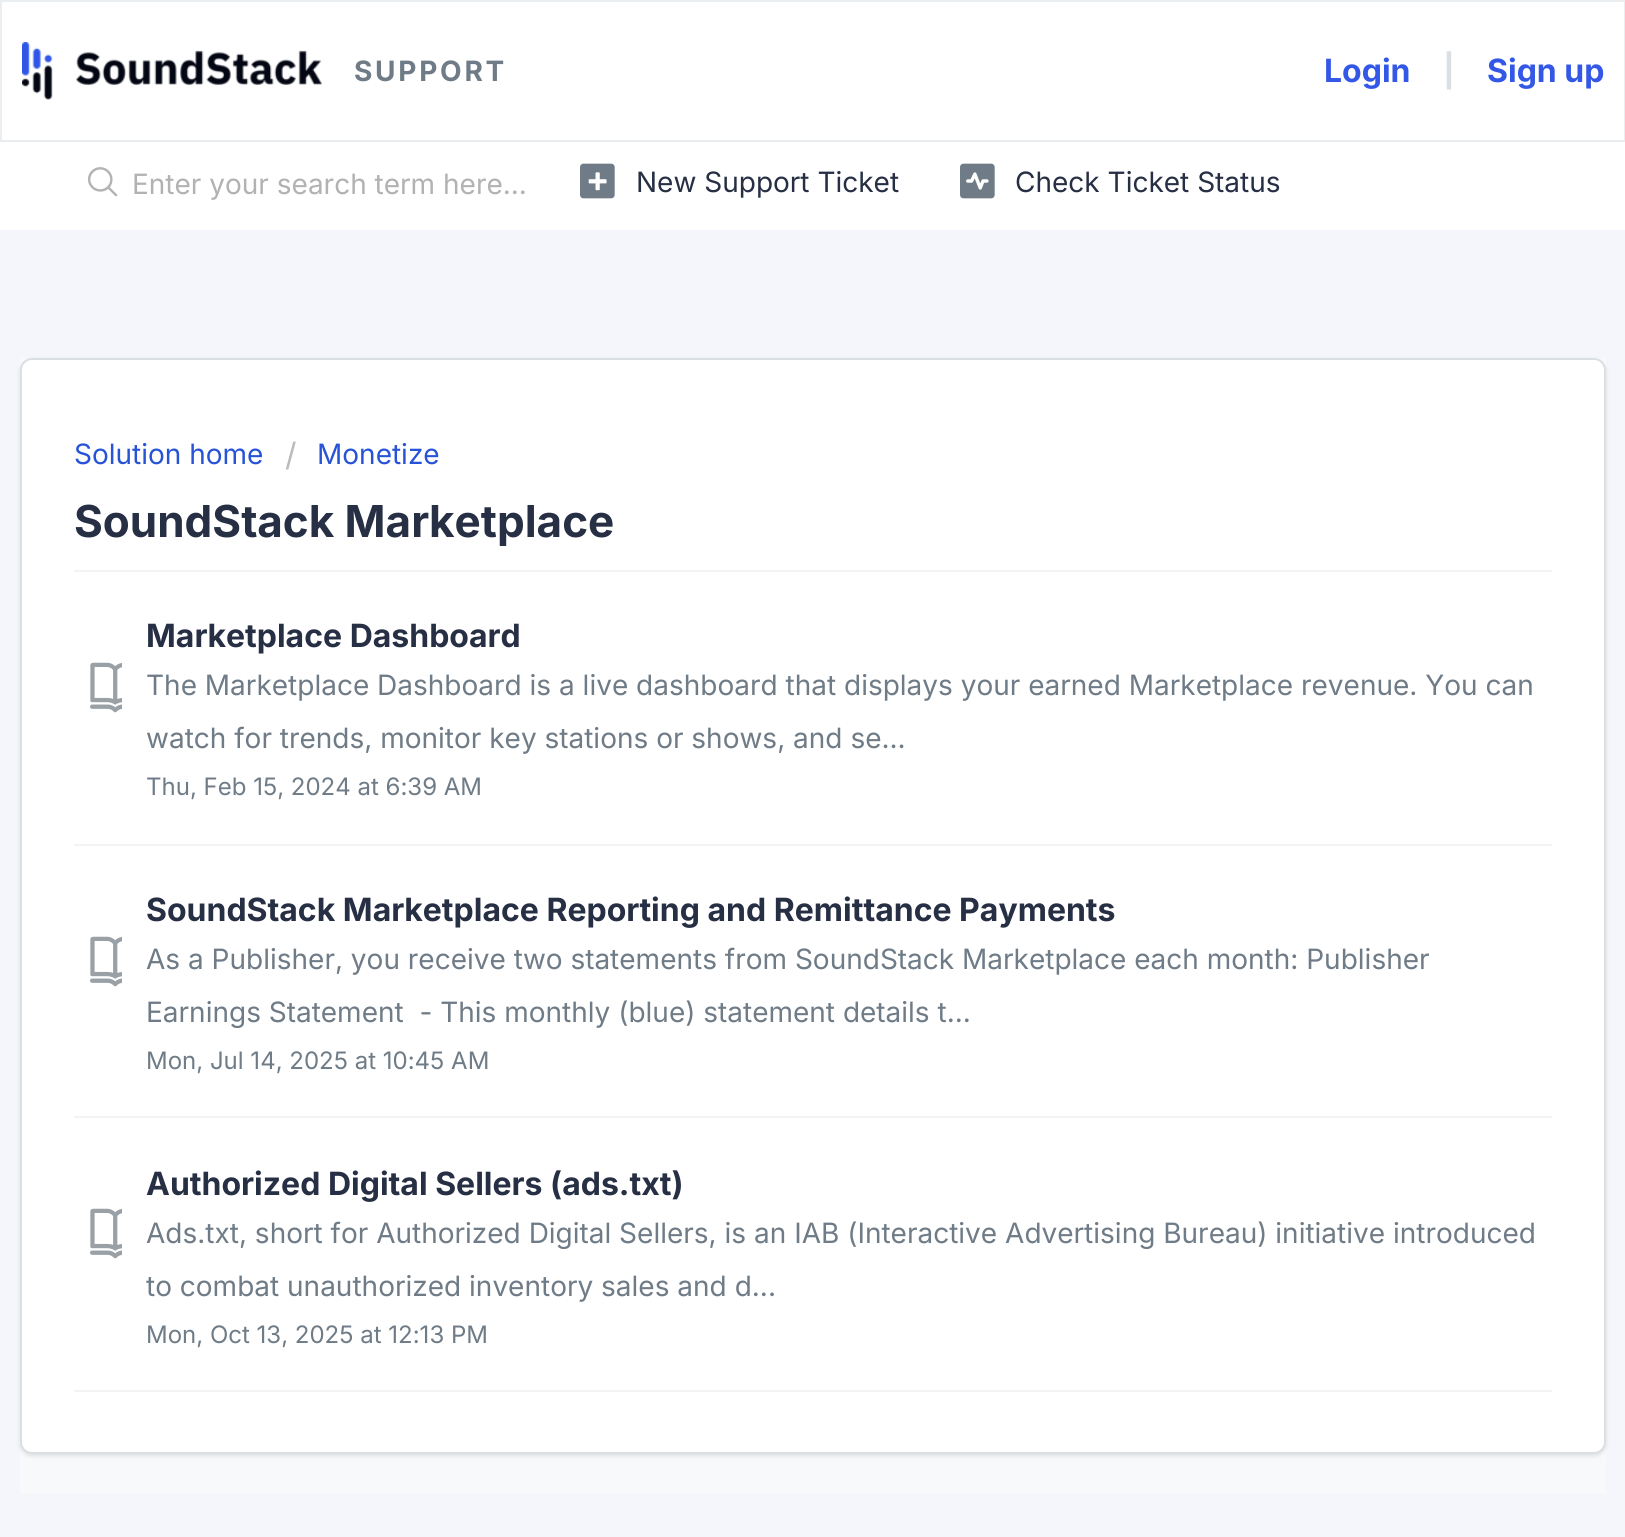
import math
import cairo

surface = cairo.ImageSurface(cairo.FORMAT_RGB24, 1625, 1537)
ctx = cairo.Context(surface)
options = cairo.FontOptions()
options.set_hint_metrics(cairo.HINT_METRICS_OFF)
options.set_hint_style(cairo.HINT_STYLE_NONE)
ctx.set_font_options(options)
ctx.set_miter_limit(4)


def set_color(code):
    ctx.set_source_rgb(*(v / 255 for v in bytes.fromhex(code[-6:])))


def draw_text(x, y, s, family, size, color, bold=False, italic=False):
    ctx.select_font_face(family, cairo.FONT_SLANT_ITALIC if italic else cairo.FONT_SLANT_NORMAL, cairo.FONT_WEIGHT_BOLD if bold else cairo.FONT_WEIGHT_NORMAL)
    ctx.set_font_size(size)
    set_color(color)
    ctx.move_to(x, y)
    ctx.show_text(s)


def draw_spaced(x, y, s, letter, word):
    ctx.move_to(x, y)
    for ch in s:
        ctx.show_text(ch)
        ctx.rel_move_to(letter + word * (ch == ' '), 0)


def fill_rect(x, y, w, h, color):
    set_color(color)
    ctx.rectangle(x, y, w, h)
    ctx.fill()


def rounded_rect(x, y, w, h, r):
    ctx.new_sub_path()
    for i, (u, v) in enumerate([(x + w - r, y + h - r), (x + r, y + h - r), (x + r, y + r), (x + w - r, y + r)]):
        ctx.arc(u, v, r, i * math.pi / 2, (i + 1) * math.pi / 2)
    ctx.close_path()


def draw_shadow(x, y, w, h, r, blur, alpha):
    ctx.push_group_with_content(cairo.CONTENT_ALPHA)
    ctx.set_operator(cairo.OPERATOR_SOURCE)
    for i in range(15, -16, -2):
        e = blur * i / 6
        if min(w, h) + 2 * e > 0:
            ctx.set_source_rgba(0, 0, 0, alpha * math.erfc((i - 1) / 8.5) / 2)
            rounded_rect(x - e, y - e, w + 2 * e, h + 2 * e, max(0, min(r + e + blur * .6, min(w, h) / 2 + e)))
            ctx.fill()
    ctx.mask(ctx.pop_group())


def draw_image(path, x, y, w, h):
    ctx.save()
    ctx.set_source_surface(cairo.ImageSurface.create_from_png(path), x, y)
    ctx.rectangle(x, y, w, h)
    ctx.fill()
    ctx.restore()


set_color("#f4f6fb")
ctx.paint()
set_color("#ffffff")
ctx.rectangle(1, 1, 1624, 140)
ctx.fill_preserve()
set_color("#ebeef0")
ctx.stroke()
draw_image("assets/img1.png", 22, 42, 300, 58)
ctx.select_font_face("Inter", cairo.FONT_SLANT_NORMAL, cairo.FONT_WEIGHT_BOLD)
ctx.set_font_size(28)
set_color("#6f7c87")
draw_spaced(354, 81, "SUPPORT", 2.75, 0)
draw_text(1324, 82, "Login", "Inter", 32, "#3357e6", bold=True)
draw_text(1443, 82, "|", "Inter", 32, "#dadfe3", bold=True)
draw_text(1487, 82, "Sign up", "Inter", 32, "#3357e6", bold=True)
fill_rect(0, 142, 1625, 88, "#ffffff")
draw_image("assets/img2.png", 88, 167, 30, 30)
draw_text(132, 194, "Enter your search term here...", "Inter", 28, "#b2b2b2")
draw_image("assets/img3.png", 580, 163, 35, 36)
draw_text(636, 192, "New Support Ticket", "Inter", 28, "#272f44")
draw_image("assets/img4.png", 960, 163, 35, 36)
draw_text(1015, 192, "Check Ticket Status", "Inter", 28, "#272f44")
fill_rect(20, 358, 1586, 1136, "#f8f9fa")
set_color("#3f3f44")
draw_shadow(20, 360, 1586, 1096, 12, 2, 0.15)
set_color("#ffffff")
rounded_rect(21, 359, 1584, 1094, 11)
ctx.fill_preserve()
set_color("#dadfe3")
ctx.stroke()
draw_text(74, 464, "Solution home", "Inter", 28, "#2753d7")
draw_text(285, 466, "/", "Inter", 32, "#bbbbbb")
draw_text(317, 464, "Monetize", "Inter", 28, "#2753d7")
draw_text(74, 537, "SoundStack Marketplace", "Inter", 44, "#272f44", bold=True)
fill_rect(74, 1390, 1478, 2, "#f3f3f3")
fill_rect(74, 570, 1478, 2, "#f3f3f3")
draw_text(146, 647, "Marketplace Dashboard", "Inter", 32, "#272f44", bold=True)
draw_image("assets/img5.png", 90, 662, 32, 51)
draw_text(146, 695, "The Marketplace Dashboard is a live dashboard that displays your earned Marketplace revenue. You can", "Inter", 28, "#6f7c87")
draw_text(146, 748, "watch for trends, monitor key stations or shows, and se...", "Inter", 28, "#6f7c87")
draw_text(146, 795, "Thu, Feb 15, 2024 at 6:39 AM", "Inter", 24, "#6f7c87")
fill_rect(74, 844, 1478, 2, "#f3f3f3")
draw_text(146, 921, "SoundStack Marketplace Reporting and Remittance Payments", "Inter", 32, "#272f44", bold=True)
draw_image("assets/img5.png", 90, 936, 32, 51)
draw_text(146, 969, "As a Publisher, you receive two statements from SoundStack Marketplace each month: Publisher", "Inter", 28, "#6f7c87")
draw_text(146, 1022, "Earnings Statement  - This monthly (blue) statement details t...", "Inter", 28, "#6f7c87")
draw_text(146, 1069, "Mon, Jul 14, 2025 at 10:45 AM", "Inter", 24, "#6f7c87")
fill_rect(74, 1116, 1478, 2, "#f3f3f3")
draw_text(146, 1195, "Authorized Digital Sellers (ads.txt)", "Inter", 32, "#272f44", bold=True)
draw_image("assets/img5.png", 90, 1208, 32, 51)
draw_text(146, 1243, "Ads.txt, short for Authorized Digital Sellers, is an IAB (Interactive Advertising Bureau) initiative introduced", "Inter", 28, "#6f7c87")
draw_text(146, 1296, "to combat unauthorized inventory sales and d...", "Inter", 28, "#6f7c87")
draw_text(146, 1343, "Mon, Oct 13, 2025 at 12:13 PM", "Inter", 24, "#6f7c87")
surface.write_to_png("output.png")
